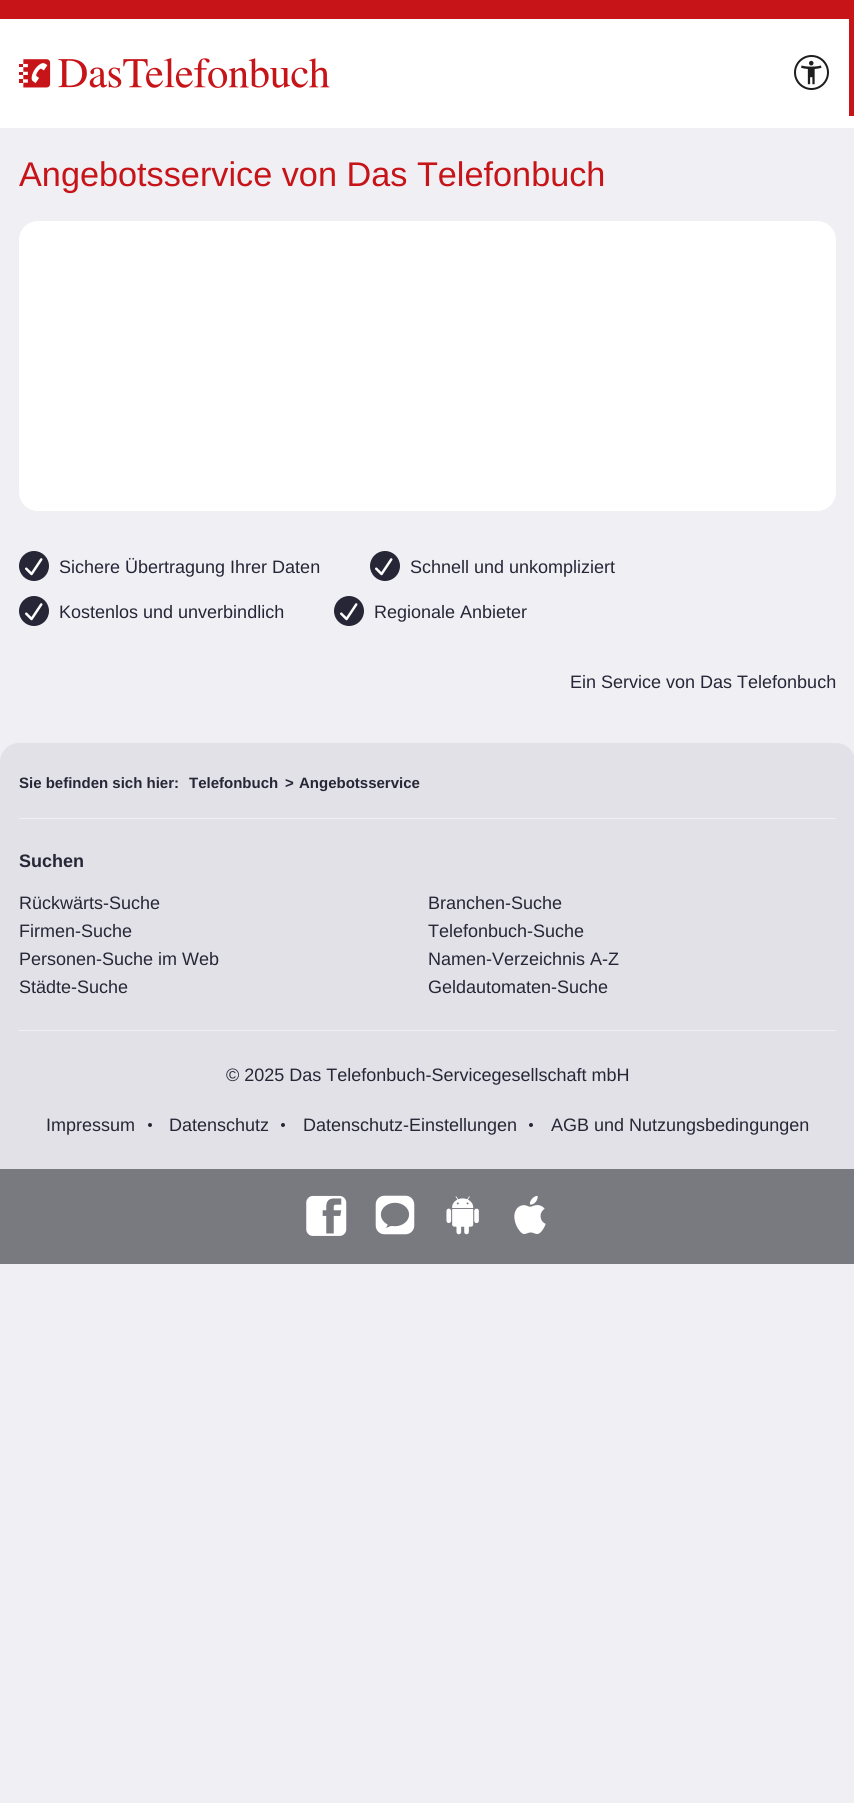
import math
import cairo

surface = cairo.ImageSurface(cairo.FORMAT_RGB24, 854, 1803)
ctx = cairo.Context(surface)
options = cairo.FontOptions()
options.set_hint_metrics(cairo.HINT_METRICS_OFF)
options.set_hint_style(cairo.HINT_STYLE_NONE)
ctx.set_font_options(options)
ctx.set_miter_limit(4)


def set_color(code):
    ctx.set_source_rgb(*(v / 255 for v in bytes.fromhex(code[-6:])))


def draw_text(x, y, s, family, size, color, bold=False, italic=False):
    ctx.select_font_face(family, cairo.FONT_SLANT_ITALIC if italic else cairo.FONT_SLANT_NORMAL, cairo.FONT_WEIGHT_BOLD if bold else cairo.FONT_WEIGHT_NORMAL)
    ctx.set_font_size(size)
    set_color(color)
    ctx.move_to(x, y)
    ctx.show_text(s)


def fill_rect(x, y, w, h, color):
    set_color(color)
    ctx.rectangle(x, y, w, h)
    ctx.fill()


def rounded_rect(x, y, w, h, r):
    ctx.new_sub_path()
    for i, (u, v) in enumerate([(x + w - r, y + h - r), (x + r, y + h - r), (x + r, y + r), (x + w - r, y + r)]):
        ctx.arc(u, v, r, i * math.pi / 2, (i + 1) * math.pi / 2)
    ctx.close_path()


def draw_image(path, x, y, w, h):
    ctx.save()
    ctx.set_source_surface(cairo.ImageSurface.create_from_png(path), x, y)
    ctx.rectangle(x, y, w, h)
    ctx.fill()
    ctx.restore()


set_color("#efeff4")
ctx.paint()
fill_rect(0, 19, 854, 109, "#ffffff")
fill_rect(0, 0, 854, 19, "#c71418")
draw_image("assets/img1.png", 19, 58, 311, 30)
draw_image("assets/img2.png", 794, 55, 35, 35)
fill_rect(849, 16, 5, 100, "#c71418")
draw_text(19, 186, "Angebotsservice von Das Telefonbuch", "Liberation Sans", 34.25, "#c71418")
set_color("#ffffff")
rounded_rect(19, 221, 817, 290, 19)
ctx.fill()
set_color("#262637")
ctx.arc(34, 566, 15, 0, 2 * math.pi)
ctx.fill()
draw_image("assets/img3.png", 25, 558, 18, 18)
draw_text(59, 573, "Sichere Übertragung Ihrer Daten", "Liberation Sans", 18, "#262637")
ctx.new_path()
ctx.arc(385, 566, 15, 0, 2 * math.pi)
ctx.fill()
draw_image("assets/img3.png", 375, 558, 18, 18)
draw_text(410, 573, "Schnell und unkompliziert", "Liberation Sans", 18, "#262637")
ctx.new_path()
ctx.arc(34, 611, 15, 0, 2 * math.pi)
ctx.fill()
draw_image("assets/img3.png", 25, 603, 18, 18)
draw_text(59, 618, "Kostenlos und unverbindlich", "Liberation Sans", 18, "#262637")
ctx.new_path()
ctx.arc(349, 611, 15, 0, 2 * math.pi)
ctx.fill()
draw_image("assets/img3.png", 340, 603, 18, 18)
draw_text(374, 618, "Regionale Anbieter", "Liberation Sans", 18, "#262637")
draw_text(570, 688, "Ein Service von Das Telefonbuch", "Liberation Sans", 18, "#262637")
set_color("#e1e1e7")
ctx.new_path()
ctx.move_to(19, 743)
ctx.line_to(836, 743)
ctx.curve_to(846.5, 743, 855, 751.5, 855, 762)
ctx.line_to(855, 819)
ctx.line_to(0, 819)
ctx.line_to(0, 762)
ctx.curve_to(0, 751.5, 8.5, 743, 19, 743)
ctx.close_path()
ctx.fill()
draw_text(19, 788, "Sie befinden sich hier:", "Liberation Sans", 15, "#262637", bold=True)
draw_text(189, 788, "Telefonbuch", "Liberation Sans", 15, "#262637", bold=True)
draw_text(285, 788, "˃", "Liberation Sans", 15, "#262637", bold=True)
draw_text(299, 788, "Angebotsservice", "Liberation Sans", 15, "#262637", bold=True)
fill_rect(19, 818, 817, 1, "#efeff4")
fill_rect(0, 819, 854, 350, "#e1e1e7")
fill_rect(19, 1030, 817, 1, "#efeff4")
draw_text(19, 867, "Suchen", "Liberation Sans", 18, "#262637", bold=True)
draw_text(19, 909, "Rückwärts-Suche", "Liberation Sans", 18, "#262637")
draw_text(428, 909, "Branchen-Suche", "Liberation Sans", 18, "#262637")
draw_text(19, 937, "Firmen-Suche", "Liberation Sans", 18, "#262637")
draw_text(428, 937, "Telefonbuch-Suche", "Liberation Sans", 18, "#262637")
draw_text(19, 965, "Personen-Suche im Web", "Liberation Sans", 18, "#262637")
draw_text(428, 965, "Namen-Verzeichnis A-Z", "Liberation Sans", 18, "#262637")
draw_text(19, 993, "Städte-Suche", "Liberation Sans", 18, "#262637")
draw_text(428, 993, "Geldautomaten-Suche", "Liberation Sans", 18, "#262637")
draw_text(226, 1081, "© 2025 Das Telefonbuch-Servicegesellschaft mbH", "Liberation Sans", 18, "#262637")
draw_text(46, 1131, "Impressum", "Liberation Sans", 18, "#262637")
ctx.new_path()
ctx.arc(150, 1125, 2, 0, 2 * math.pi)
ctx.fill()
draw_text(169, 1131, "Datenschutz", "Liberation Sans", 18, "#262637")
ctx.new_path()
ctx.arc(283, 1125, 2, 0, 2 * math.pi)
ctx.fill()
draw_text(303, 1131, "Datenschutz-Einstellungen", "Liberation Sans", 18, "#262637")
ctx.new_path()
ctx.arc(531, 1125, 2, 0, 2 * math.pi)
ctx.fill()
draw_text(551, 1131, "AGB und Nutzungsbedingungen", "Liberation Sans", 18, "#262637")
fill_rect(0, 1169, 854, 95, "#797980")
draw_image("assets/img4.png", 306, 1195, 41, 41)
draw_image("assets/img5.png", 375, 1195, 40, 40)
draw_image("assets/img6.png", 446, 1196, 33, 39)
draw_image("assets/img7.png", 514, 1195, 32, 39)
surface.write_to_png("output.png")
